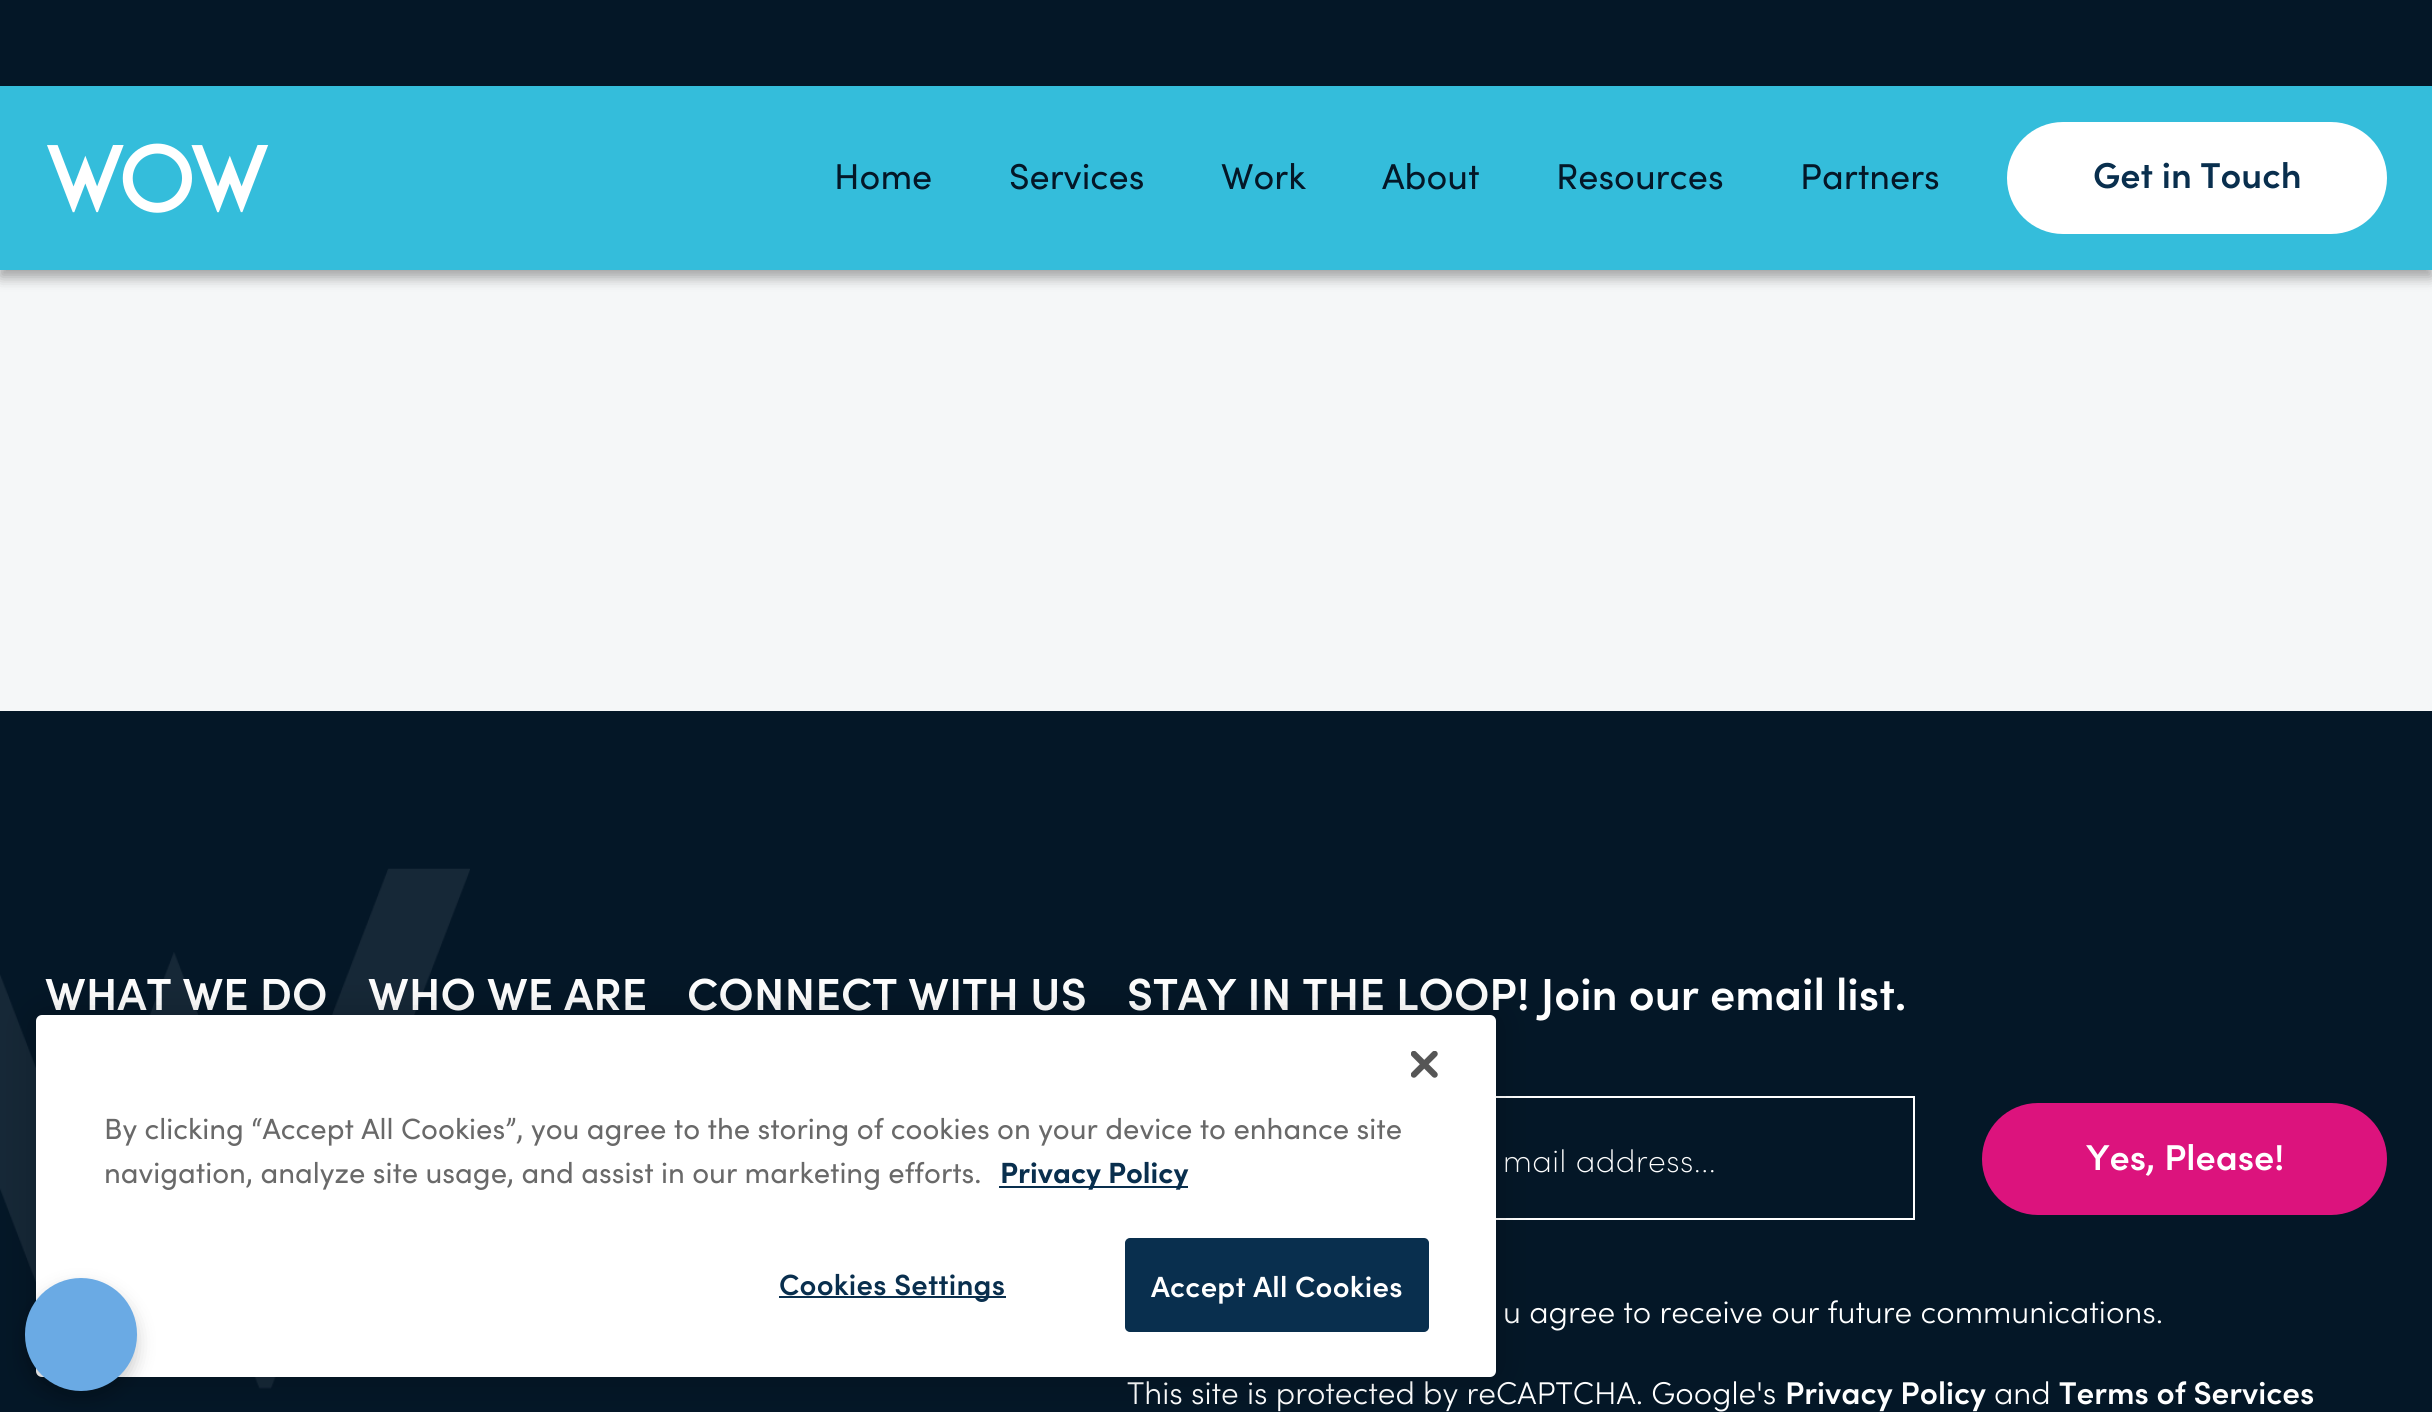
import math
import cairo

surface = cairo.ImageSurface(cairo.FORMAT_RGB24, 2432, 1412)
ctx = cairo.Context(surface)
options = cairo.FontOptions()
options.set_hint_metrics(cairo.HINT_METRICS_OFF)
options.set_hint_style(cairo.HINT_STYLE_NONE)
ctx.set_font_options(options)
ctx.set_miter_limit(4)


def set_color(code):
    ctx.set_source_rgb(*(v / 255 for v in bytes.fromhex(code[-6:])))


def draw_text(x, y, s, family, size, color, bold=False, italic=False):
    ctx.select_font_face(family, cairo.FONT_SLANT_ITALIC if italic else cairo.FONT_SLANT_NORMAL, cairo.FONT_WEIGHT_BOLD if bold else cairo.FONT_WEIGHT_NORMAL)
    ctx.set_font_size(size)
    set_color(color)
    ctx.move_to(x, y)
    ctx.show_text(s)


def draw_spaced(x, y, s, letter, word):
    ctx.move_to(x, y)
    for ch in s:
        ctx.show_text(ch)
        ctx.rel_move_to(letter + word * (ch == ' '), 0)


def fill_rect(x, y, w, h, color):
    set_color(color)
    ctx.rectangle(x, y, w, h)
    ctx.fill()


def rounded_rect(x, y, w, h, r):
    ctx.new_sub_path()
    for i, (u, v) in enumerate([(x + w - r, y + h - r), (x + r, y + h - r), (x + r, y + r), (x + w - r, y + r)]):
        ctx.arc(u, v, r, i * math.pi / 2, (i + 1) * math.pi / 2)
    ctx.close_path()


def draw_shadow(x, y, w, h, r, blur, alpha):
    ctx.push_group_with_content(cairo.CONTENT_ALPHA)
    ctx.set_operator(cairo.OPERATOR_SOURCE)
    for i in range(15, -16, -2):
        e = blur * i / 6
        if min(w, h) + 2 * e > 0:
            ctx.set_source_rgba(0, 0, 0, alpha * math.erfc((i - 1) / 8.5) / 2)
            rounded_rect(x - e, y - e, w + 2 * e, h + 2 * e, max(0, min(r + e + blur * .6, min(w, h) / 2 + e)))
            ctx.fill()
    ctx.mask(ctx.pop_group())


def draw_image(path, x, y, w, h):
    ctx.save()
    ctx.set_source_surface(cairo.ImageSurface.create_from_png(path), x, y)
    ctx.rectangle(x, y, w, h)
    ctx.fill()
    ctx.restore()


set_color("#f5f7f8")
ctx.paint()
set_color("#000000")
draw_shadow(0, 7, 2432, 270, 0, 7, 0.23)
draw_shadow(0, 7, 2432, 270, 0, 7, 0.16)
fill_rect(0, 86, 2432, 184, "#34bddb")
fill_rect(0, 0, 2432, 86, "#041727")
draw_image("assets/img1.png", 47, 143, 222, 70)
draw_text(834, 189, "Home", "Sofia", 36, "#041727")
draw_text(1009, 189, "Services", "Sofia", 36, "#041727")
draw_text(1221, 189, "Work", "Sofia", 36, "#041727")
draw_text(1382, 189, "About", "Sofia", 36, "#041727")
draw_text(1556, 189, "Resources", "Sofia", 36, "#041727")
draw_text(1800, 189, "Partners", "Sofia", 36, "#041727")
set_color("#ffffff")
rounded_rect(2007, 122, 380, 112, 56)
ctx.fill()
draw_text(2093, 188, "Get in Touch", "Sofia SemiBold", 36, "#092f4e")
fill_rect(0, 711, 2432, 701, "#041727")
draw_image("assets/img2.png", 0, 868, 470, 521)
draw_text(45, 1010, "WHAT WE DO", "Sofia SemiBold", 45, "#ffffff")
draw_text(368, 1010, "WHO WE ARE", "Sofia SemiBold", 45, "#ffffff")
draw_text(687, 1010, "CONNECT WITH US", "Sofia SemiBold", 45, "#ffffff")
draw_text(1127, 1010, "STAY IN THE LOOP! Join our email list.", "Sofia SemiBold", 45, "#ffffff")
ctx.rectangle(1128, 1097, 786, 122)
ctx.stroke()
ctx.select_font_face("Sofia ExtraLight")
ctx.set_font_size(31.5)
draw_spaced(1503, 1172, "mail address...", 0.5, 0)
set_color("#dc137d")
rounded_rect(1982, 1103, 405, 112, 56)
ctx.fill()
draw_text(2086, 1170, "Yes, Please!", "Sofia SemiBold", 36, "#ffffff")
draw_text(1503, 1323, "u agree to receive our future communications.", "Sofia Light", 31.5, "#ffffff")
draw_text(1127, 1404, "This site is protected by reCAPTCHA. Google's", "Sofia Light", 31.5, "#ffffff")
draw_text(1785, 1404, "Privacy Policy", "Sofia SemiBold", 31.5, "#ffffff")
draw_text(1994, 1404, "and", "Sofia Light", 31.5, "#ffffff")
draw_text(2059, 1404, "Terms of Services", "Sofia SemiBold", 31.5, "#ffffff")
set_color("#000000")
draw_shadow(36, 1015, 1460, 362, 6, 20, 0.2)
set_color("#ffffff")
rounded_rect(36, 1015, 1460, 362, 6)
ctx.fill()
draw_image("assets/img3.png", 1411, 1051, 27, 27)
draw_text(104, 1139, "By clicking “Accept All Cookies”, you agree to the storing of cookies on your device to enhance site", "Sofia", 29.25, "#696969")
draw_text(104, 1183, "navigation, analyze site usage, and assist in our marketing efforts.", "Sofia", 29.25, "#696969")
fill_rect(999, 1186, 189, 2, "#092f4e")
draw_text(1000, 1183, "Privacy Policy", "Sofia", 29.25, "#092f4e", bold=True)
fill_rect(779, 1296, 227, 2, "#092f4e")
ctx.select_font_face("Sofia SemiBold")
draw_spaced(779, 1295, "Cookies Settings", 0.25, 0)
rounded_rect(1126, 1239, 302, 92, 4)
ctx.fill_preserve()
ctx.stroke()
set_color("#ffffff")
draw_spaced(1151, 1297, "Accept All Cookies", 0.25, 0)
set_color("#000000")
draw_shadow(25, 1287, 112, 113, 56, 9, 0.2)
set_color("#6aaae4")
rounded_rect(25, 1278, 112, 113, 56)
ctx.fill()
surface.write_to_png("output.png")
